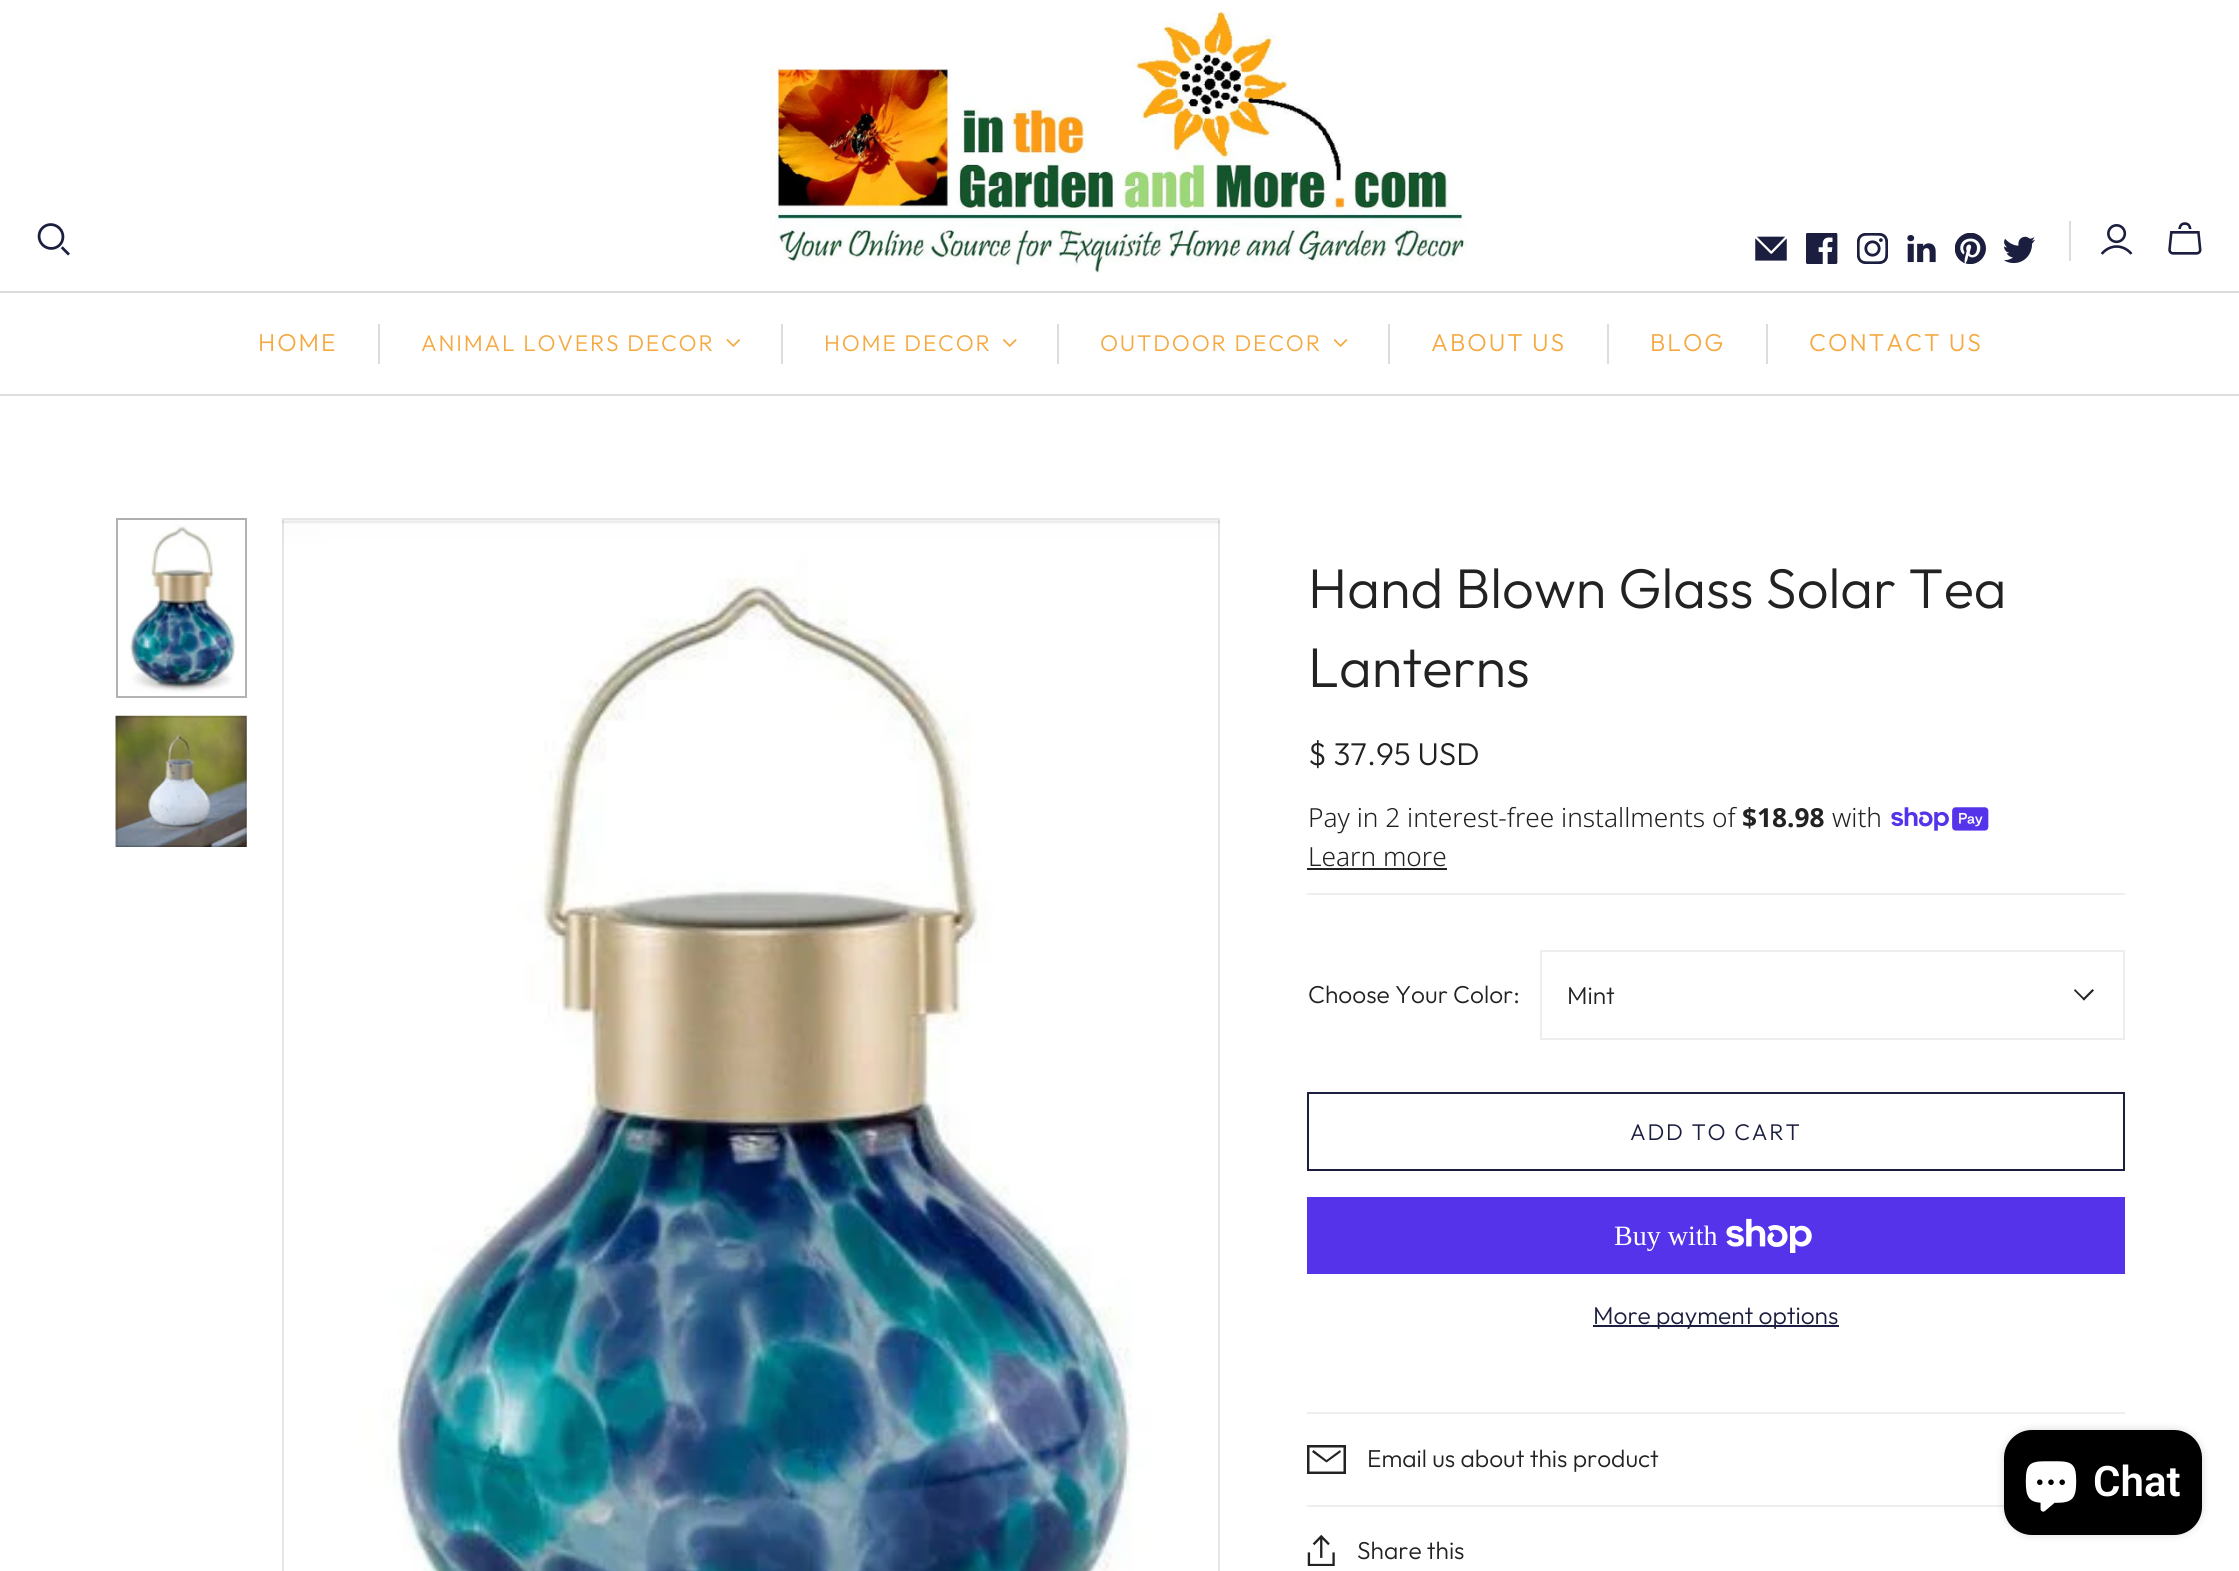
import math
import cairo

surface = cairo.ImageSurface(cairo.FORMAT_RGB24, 2239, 1571)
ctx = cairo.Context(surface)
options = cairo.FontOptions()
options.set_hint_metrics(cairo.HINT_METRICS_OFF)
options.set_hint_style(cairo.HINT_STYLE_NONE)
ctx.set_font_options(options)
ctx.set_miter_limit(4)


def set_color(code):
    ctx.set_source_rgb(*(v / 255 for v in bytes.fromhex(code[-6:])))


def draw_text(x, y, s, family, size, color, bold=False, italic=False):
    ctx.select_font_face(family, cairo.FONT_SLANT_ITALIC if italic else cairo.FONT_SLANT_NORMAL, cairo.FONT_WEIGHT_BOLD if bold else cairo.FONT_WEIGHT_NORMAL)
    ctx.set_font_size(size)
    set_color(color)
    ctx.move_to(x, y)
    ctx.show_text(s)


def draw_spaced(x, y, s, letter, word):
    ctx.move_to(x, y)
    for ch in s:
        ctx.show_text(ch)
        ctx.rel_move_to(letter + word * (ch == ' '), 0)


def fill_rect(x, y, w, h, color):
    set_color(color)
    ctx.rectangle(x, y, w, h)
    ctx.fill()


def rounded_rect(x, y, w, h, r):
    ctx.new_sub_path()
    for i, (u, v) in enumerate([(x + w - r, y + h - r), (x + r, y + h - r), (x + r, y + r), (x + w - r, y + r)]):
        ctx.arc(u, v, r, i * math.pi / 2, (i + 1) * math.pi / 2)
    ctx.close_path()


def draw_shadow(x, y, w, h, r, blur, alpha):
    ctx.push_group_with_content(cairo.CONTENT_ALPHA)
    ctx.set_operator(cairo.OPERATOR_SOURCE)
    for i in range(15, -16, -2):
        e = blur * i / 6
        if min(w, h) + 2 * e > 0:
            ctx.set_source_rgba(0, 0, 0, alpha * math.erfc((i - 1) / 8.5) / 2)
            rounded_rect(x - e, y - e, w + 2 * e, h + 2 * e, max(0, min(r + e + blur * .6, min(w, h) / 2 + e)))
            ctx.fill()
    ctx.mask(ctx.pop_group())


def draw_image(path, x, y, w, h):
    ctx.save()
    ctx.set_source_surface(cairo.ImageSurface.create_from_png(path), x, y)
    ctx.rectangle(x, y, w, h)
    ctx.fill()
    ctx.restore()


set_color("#ffffff")
ctx.paint()
draw_image("assets/img1.png", 770, 12, 698, 261)
draw_image("assets/img2.png", 37, 223, 33, 33)
draw_image("assets/img3.png", 1755, 236, 32, 25)
draw_image("assets/img4.png", 1806, 233, 32, 31)
draw_image("assets/img5.png", 1857, 233, 31, 31)
draw_image("assets/img6.png", 1907, 235, 29, 28)
draw_image("assets/img7.png", 1955, 233, 31, 31)
draw_image("assets/img8.png", 2004, 236, 31, 28)
fill_rect(2069, 221, 2, 40, "#dddddd")
draw_image("assets/img9.png", 2100, 224, 33, 31)
draw_image("assets/img10.png", 2168, 222, 34, 33)
fill_rect(0, 291, 2239, 2, "#dddddd")
fill_rect(0, 394, 2239, 2, "#dddddd")
ctx.select_font_face("Outfit Light")
ctx.set_font_size(24.5)
set_color("#f5a941")
draw_spaced(258, 351, "HOME", 2, 0)
fill_rect(378, 324, 2, 40, "#dddddd")
ctx.set_font_size(22.75)
set_color("#f5a941")
draw_spaced(421, 351, "ANIMAL LOVERS DECOR", 1.8, 0)
draw_image("assets/img11.png", 726, 339, 14, 8)
fill_rect(781, 324, 2, 40, "#dddddd")
set_color("#f5a941")
draw_spaced(824, 351, "HOME DECOR", 1.8, 0)
draw_image("assets/img12.png", 1003, 339, 14, 8)
fill_rect(1057, 324, 2, 40, "#dddddd")
set_color("#f5a941")
draw_spaced(1100, 351, "OUTDOOR DECOR", 1.8, 0)
draw_image("assets/img13.png", 1334, 339, 14, 8)
fill_rect(1388, 324, 2, 40, "#dddddd")
ctx.set_font_size(24.5)
set_color("#f5a941")
draw_spaced(1431, 351, "ABOUT US", 2, 0)
fill_rect(1607, 324, 2, 40, "#dddddd")
set_color("#f5a941")
draw_spaced(1650, 351, "BLOG", 2, 0)
fill_rect(1766, 324, 2, 40, "#dddddd")
set_color("#f5a941")
draw_spaced(1809, 351, "CONTACT US", 2, 0)
draw_image("assets/img14.png", 116, 518, 131, 175)
ctx.rectangle(117, 519, 129, 178)
ctx.set_source_rgba(0, 0, 0, 0.3)
ctx.stroke()
draw_image("assets/img15.png", 115, 715, 132, 132)
ctx.rectangle(117, 717, 129, 129)
ctx.set_source_rgba(0, 0, 0, 0.1)
ctx.stroke()
draw_image("assets/img16.png", 281, 520, 939, 1051)
ctx.rectangle(283, 519, 936, 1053)
ctx.stroke()
draw_text(1308, 608, "Hand Blown Glass Solar Tea", "Outfit Light", 56, "#222222")
draw_text(1308, 687, "Lanterns", "Outfit Light", 56, "#222222")
fill_rect(1307, 893, 818, 2, "#eeeeee")
draw_text(1308, 765, "$ 37.95 USD", "Outfit Light", 31.5, "#222222")
draw_text(1308, 827, "Pay in 2 interest-free installments of", "Noto Sans Light", 26.25, "#222222")
draw_text(1742, 827, "$18.98", "Noto Sans", 26.25, "#222222", bold=True)
draw_text(1832, 827, "with", "Noto Sans Light", 26.25, "#222222")
draw_image("assets/img17.png", 1891, 807, 98, 24)
draw_text(1308, 866, "Learn more", "Noto Sans Light", 26.25, "#222222")
fill_rect(1307, 868, 140, 2, "#222222")
fill_rect(1307, 1412, 818, 2, "#eeeeee")
draw_text(1308, 1003, "Choose Your Color:", "Outfit Light", 24.5, "#222222")
ctx.rectangle(1541, 951, 583, 88)
set_color("#eeeeee")
ctx.stroke()
draw_text(1567, 1004, "Mint", "Outfit Light", 24.5, "#222222")
ctx.new_path()
ctx.move_to(2082.5, 999)
ctx.line_to(2092.5, 989)
ctx.line_to(2094, 990.5)
ctx.line_to(2084, 1000.5)
ctx.close_path()
ctx.fill()
ctx.new_path()
ctx.move_to(2074, 990.5)
ctx.line_to(2075, 989)
ctx.line_to(2085, 999)
ctx.line_to(2084, 1000.5)
ctx.close_path()
ctx.fill()
ctx.rectangle(1308, 1093, 816, 77)
set_color("#1b1e3f")
ctx.stroke()
ctx.set_font_size(22.75)
draw_spaced(1630, 1140, "ADD TO CART", 1.8, 0)
fill_rect(1307, 1197, 818, 77, "#5433eb")
draw_text(1614, 1245, "Buy with", "Liberation Serif", 28, "#ffffff")
draw_image("assets/img18.png", 1726, 1218, 86, 35)
fill_rect(1593, 1325, 246, 2, "#1b1e3f")
draw_text(1593, 1324, "More payment options", "Outfit Light", 24.5, "#1b1e3f")
fill_rect(1307, 1505, 697, 2, "#eeeeee")
set_color("#222222")
ctx.set_fill_rule(cairo.FILL_RULE_EVEN_ODD)
ctx.new_path()
ctx.move_to(1309.5, 1447.5)
ctx.line_to(1343.5, 1447.5)
ctx.line_to(1343.5, 1471.5)
ctx.line_to(1309.5, 1471.5)
ctx.close_path()
ctx.move_to(1307, 1445)
ctx.line_to(1346, 1445)
ctx.line_to(1346, 1474)
ctx.line_to(1307, 1474)
ctx.close_path()
ctx.move_to(1312, 1452)
ctx.line_to(1326.5, 1462.5)
ctx.line_to(1341, 1452)
ctx.line_to(1340, 1450)
ctx.line_to(1326.5, 1460)
ctx.line_to(1313.5, 1450)
ctx.close_path()
ctx.fill()
draw_text(1367, 1467, "Email us about this product", "Outfit Light", 24.5, "#222222")
draw_image("assets/img19.png", 1307, 1535, 28, 31)
draw_text(1357, 1559, "Share this", "Outfit Light", 24.5, "#222222")
set_color("#000000")
draw_shadow(2004, 1430, 198, 105, 28, 4.5, 0.15)
set_color("#000000")
rounded_rect(2004, 1430, 198, 105, 28)
ctx.fill()
draw_image("assets/img20.png", 2025, 1461, 52, 51)
draw_text(2093, 1496, "Chat", "Roboto SemiBold", 42, "#ffffff")
surface.write_to_png("output.png")
